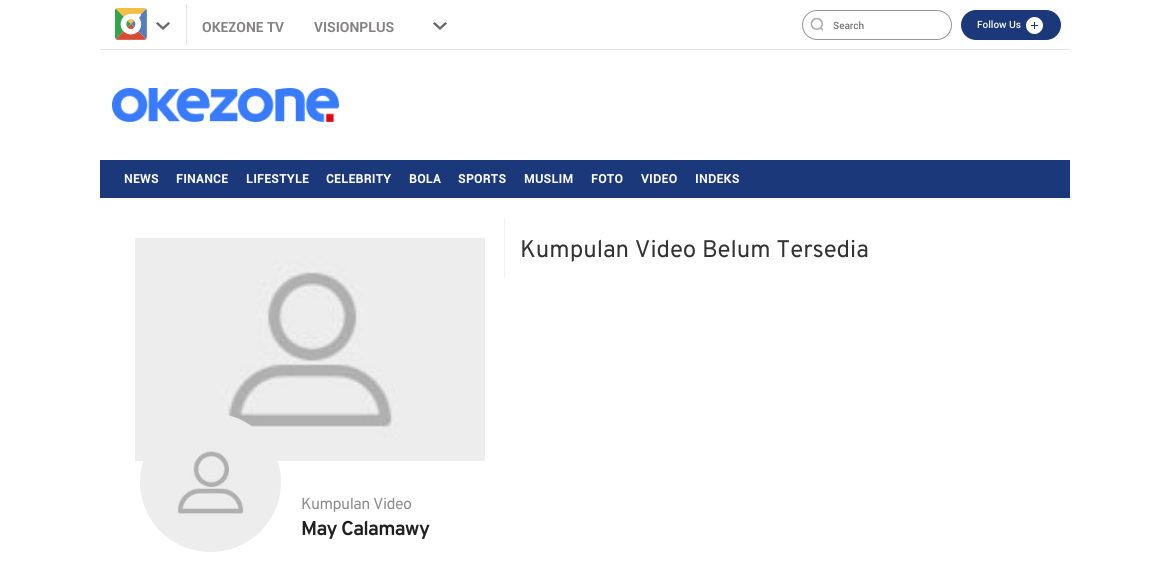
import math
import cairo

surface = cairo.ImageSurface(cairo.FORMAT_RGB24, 1169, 561)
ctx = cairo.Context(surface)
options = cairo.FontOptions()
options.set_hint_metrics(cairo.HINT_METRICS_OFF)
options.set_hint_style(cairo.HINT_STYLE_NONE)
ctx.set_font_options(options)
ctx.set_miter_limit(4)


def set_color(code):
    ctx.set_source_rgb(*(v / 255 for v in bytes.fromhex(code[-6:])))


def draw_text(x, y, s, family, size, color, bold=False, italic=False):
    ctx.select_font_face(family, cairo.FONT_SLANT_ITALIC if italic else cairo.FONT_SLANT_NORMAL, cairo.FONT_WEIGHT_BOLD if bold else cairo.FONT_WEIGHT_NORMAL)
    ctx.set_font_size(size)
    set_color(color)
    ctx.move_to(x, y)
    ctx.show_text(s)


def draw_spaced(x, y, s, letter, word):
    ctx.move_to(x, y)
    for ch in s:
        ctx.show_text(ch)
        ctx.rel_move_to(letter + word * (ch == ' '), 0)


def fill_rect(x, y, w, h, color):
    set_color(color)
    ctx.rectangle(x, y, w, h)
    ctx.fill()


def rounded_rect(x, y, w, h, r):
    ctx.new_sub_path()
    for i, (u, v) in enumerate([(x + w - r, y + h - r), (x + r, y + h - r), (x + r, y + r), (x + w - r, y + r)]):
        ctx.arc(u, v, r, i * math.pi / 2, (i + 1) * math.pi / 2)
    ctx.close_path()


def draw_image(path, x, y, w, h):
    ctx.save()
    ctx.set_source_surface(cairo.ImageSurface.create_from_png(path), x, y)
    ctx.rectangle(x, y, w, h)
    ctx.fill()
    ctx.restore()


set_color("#ffffff")
ctx.paint()
fill_rect(100, 49, 970, 1, "#e4e4e4")
draw_image("assets/img1.png", 115, 8, 32, 32)
draw_image("assets/img2.png", 156, 22, 14, 8)
fill_rect(186, 4, 1, 42, "#e4e4e4")
draw_text(202, 32, "OKEZONE TV", "Roboto", 14, "#848282", bold=True)
draw_text(314, 32, "VISIONPLUS", "Roboto", 14, "#848282", bold=True)
draw_image("assets/img2.png", 433, 22, 14, 8)
rounded_rect(802.5, 10.5, 149, 29, 14.5)
set_color("#979797")
ctx.set_line_width(1)
ctx.stroke()
draw_image("assets/img3.png", 810, 17, 13, 15)
draw_text(833, 29, "Search", "Roboto Medium", 10, "#757575")
set_color("#1b387b")
rounded_rect(961, 10, 100, 30, 15)
ctx.fill()
draw_text(977, 28, "Follow Us", "Roboto Medium", 10, "#ffffff")
draw_image("assets/img4.png", 1026, 17, 17, 17)
draw_image("assets/img5.png", 112, 88, 227, 34)
fill_rect(100, 160, 970, 38, "#1b387b")
ctx.select_font_face("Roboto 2", cairo.FONT_SLANT_NORMAL, cairo.FONT_WEIGHT_BOLD)
ctx.set_font_size(12)
set_color("#ffffff")
draw_spaced(124, 183, "NEWS", 0.5, 0)
draw_spaced(176, 183, "FINANCE", 0.5, 0)
draw_spaced(246, 183, "LIFESTYLE", 0.5, 0)
draw_spaced(326, 183, "CELEBRITY", 0.5, 0)
draw_spaced(409, 183, "BOLA", 0.5, 0)
draw_spaced(458, 183, "SPORTS", 0.5, 0)
draw_spaced(524, 183, "MUSLIM", 0.5, 0)
draw_spaced(591, 183, "FOTO", 0.5, 0)
draw_spaced(641, 183, "VIDEO", 0.5, 0)
draw_spaced(695, 183, "INDEKS", 0.5, 0)
fill_rect(504, 218, 1, 60, "#f4f4f4")
draw_text(520, 257, "Kumpulan Video Belum Tersedia", "Overpass", 24, "#333333")
draw_image("assets/img6.png", 135, 238, 350, 223)
draw_image("assets/img7.png", 140, 415, 141, 137)
ctx.set_font_size(16)
set_color("#8c8c8c")
draw_spaced(301, 509, "Kumpulan Video", -0.5, 0)
ctx.select_font_face("Overpass", cairo.FONT_SLANT_NORMAL, cairo.FONT_WEIGHT_BOLD)
ctx.set_font_size(20)
set_color("#202020")
draw_spaced(301, 535, "May Calamawy", -0.75, 0)
surface.write_to_png("output.png")
